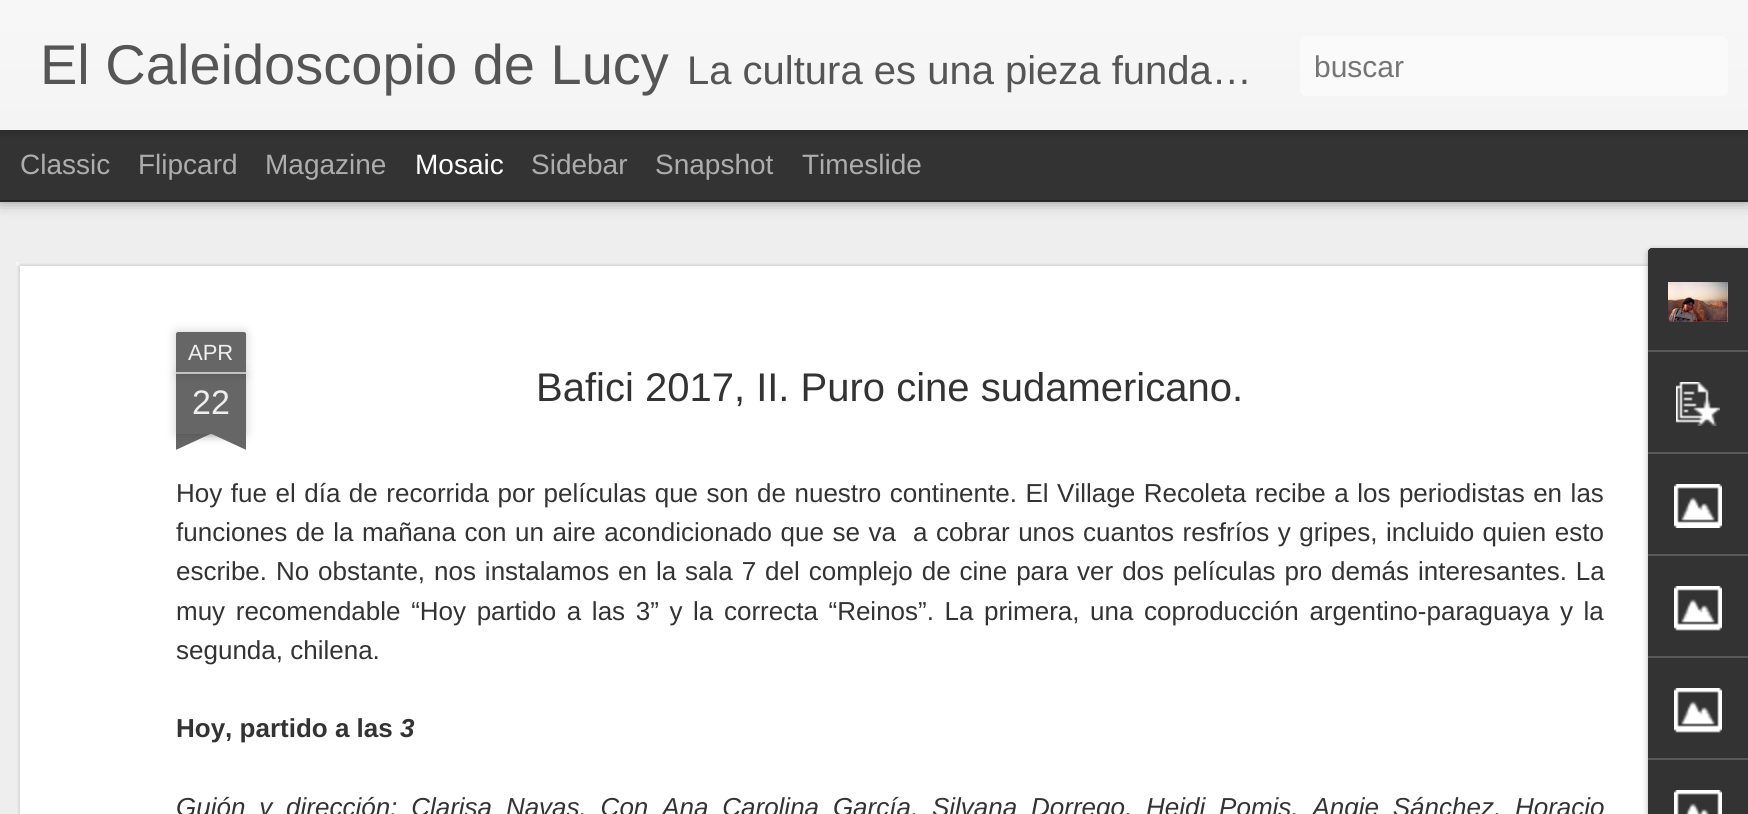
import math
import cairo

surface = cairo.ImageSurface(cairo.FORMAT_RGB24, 1748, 814)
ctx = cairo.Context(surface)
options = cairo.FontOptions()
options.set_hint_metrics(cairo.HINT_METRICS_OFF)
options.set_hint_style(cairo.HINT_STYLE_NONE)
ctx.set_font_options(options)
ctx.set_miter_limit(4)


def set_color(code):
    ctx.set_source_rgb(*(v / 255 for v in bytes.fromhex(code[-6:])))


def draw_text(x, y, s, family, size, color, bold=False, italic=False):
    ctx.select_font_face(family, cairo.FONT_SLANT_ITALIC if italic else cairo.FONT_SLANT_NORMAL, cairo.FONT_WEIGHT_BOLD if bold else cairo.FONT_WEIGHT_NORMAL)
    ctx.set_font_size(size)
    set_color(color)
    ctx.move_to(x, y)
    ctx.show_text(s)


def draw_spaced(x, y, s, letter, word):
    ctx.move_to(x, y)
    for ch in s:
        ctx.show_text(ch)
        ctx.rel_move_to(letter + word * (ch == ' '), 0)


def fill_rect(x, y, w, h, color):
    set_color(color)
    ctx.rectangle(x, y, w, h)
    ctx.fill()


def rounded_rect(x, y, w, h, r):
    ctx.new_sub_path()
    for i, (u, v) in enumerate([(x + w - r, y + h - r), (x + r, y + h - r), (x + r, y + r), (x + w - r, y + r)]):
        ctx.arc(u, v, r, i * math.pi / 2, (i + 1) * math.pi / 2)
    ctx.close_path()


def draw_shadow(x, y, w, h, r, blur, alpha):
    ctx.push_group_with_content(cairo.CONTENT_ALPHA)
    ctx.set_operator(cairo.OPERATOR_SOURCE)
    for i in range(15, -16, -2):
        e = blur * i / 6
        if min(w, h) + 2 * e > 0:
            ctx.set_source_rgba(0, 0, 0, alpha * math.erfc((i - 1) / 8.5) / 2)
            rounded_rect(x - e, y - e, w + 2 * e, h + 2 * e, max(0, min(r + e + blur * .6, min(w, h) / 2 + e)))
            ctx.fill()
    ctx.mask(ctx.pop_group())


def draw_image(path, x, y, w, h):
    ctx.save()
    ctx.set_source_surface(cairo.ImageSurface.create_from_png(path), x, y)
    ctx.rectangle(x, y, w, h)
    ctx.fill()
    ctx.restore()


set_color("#333333")
ctx.paint()
fill_rect(0, 202, 1748, 612, "#eeeeee")
set_color("#000000")
draw_shadow(0, 130, 1748, 70, 0, 8, 0.5)
fill_rect(0, 130, 1748, 70, "#333333")
set_color("#000000")
draw_shadow(0, 0, 1748, 130, 0, 5, 0.3)
gradient = cairo.LinearGradient(0, 0, 0, 130)
gradient.add_color_stop_rgba(0, 0.969, 0.969, 0.969, 1)
gradient.add_color_stop_rgba(1, 0.957, 0.957, 0.957, 1)
ctx.set_source(gradient)
ctx.rectangle(0, 0, 1748, 130)
ctx.fill()
draw_text(40, 84, "El Caleidoscopio de Lucy", "Liberation Sans", 56, "#555555")
draw_text(687, 84, "La cultura es una pieza funda…", "Liberation Sans", 40, "#555555")
set_color("#fafafa")
rounded_rect(1300, 36, 428, 60, 6)
ctx.fill()
draw_text(1314, 77, "buscar", "Liberation Sans", 30, "#757575")
draw_text(20, 174, "Classic", "Liberation Sans", 28, "#adadad")
draw_text(138, 174, "Flipcard", "Liberation Sans", 28, "#adadad")
draw_text(265, 174, "Magazine", "Liberation Sans", 28, "#adadad")
draw_text(415, 174, "Mosaic", "Liberation Sans", 28, "#ffffff")
draw_text(531, 174, "Sidebar", "Liberation Sans", 28, "#adadad")
draw_text(655, 174, "Snapshot", "Liberation Sans", 28, "#adadad")
draw_text(802, 174, "Timeslide", "Liberation Sans", 28, "#adadad")
fill_rect(16, 262, 1632, 552, "#ffffff")
draw_image("assets/img1.png", 16, 262, 1632, 552)
set_color("#000000")
draw_shadow(176, 374, 70, 60, 0, 5, 0.2)
fill_rect(176, 374, 70, 60, "#666666")
set_color("#000000")
draw_shadow(176, 332, 70, 42, 2, 5, 0.2)
set_color("#666666")
ctx.new_path()
ctx.move_to(178, 332)
ctx.line_to(244, 332)
ctx.curve_to(245, 332, 246, 333, 246, 334)
ctx.line_to(246, 374)
ctx.line_to(176, 374)
ctx.line_to(176, 334)
ctx.curve_to(176, 333, 177, 332, 178, 332)
ctx.close_path()
ctx.fill()
fill_rect(176, 372, 70, 2, "#c2c2c2")
draw_text(188, 360, "APR", "Liberation Sans", 22, "#eeeeee")
draw_text(192, 414, "22", "Liberation Sans", 34, "#eeeeee")
ctx.save()
ctx.rectangle(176, 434, 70, 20)
ctx.clip()
set_color("#000000")
draw_shadow(158, 414, 100, 20, 0, 5, 0.2)
ctx.restore()
ctx.save()
ctx.rectangle(176, 434, 70, 20)
ctx.clip()
set_color("#666666")
ctx.new_path()
ctx.move_to(158, 436)
ctx.line_to(249, 394)
ctx.line_to(258, 412)
ctx.line_to(167, 454)
ctx.close_path()
ctx.fill()
ctx.restore()
ctx.save()
ctx.rectangle(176, 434, 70, 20)
ctx.clip()
set_color("#000000")
draw_shadow(164, 414, 100, 20, 0, 5, 0.2)
ctx.restore()
ctx.save()
ctx.rectangle(176, 434, 70, 20)
ctx.clip()
set_color("#666666")
ctx.new_path()
ctx.move_to(173, 394)
ctx.line_to(264, 436)
ctx.line_to(255, 454)
ctx.line_to(164, 412)
ctx.close_path()
ctx.fill()
ctx.restore()
draw_text(536, 401, "Bafici 2017, II. Puro cine sudamericano.", "Liberation Sans", 40, "#333333")
ctx.set_font_size(26)
draw_spaced(176, 502, "Hoy fue el día de recorrida por películas que son de nuestro continente. El Village Recoleta recibe a los periodistas en las", 0, 1.3)
draw_spaced(176, 541, "funciones de la mañana con un aire acondicionado que se va  a cobrar unos cuantos resfríos y gripes, incluido quien esto", 0, 1.3)
draw_spaced(176, 580, "escribe. No obstante, nos instalamos en la sala 7 del complejo de cine para ver dos películas pro demás interesantes. La", 0, 1.7)
draw_spaced(176, 620, "muy recomendable “Hoy partido a las 3” y la correcta “Reinos”. La primera, una coproducción argentino-paraguaya y la", 0, 3.4)
draw_text(176, 659, "segunda, chilena.", "Liberation Sans", 26, "#333333")
draw_text(176, 737, "Hoy, partido a las", "Liberation Sans", 26, "#333333", bold=True)
draw_text(400, 737, "3", "Liberation Sans", 26, "#333333", bold=True, italic=True)
ctx.select_font_face("Liberation Sans", cairo.FONT_SLANT_ITALIC)
draw_spaced(176, 816, "Guión y dirección: Clarisa Navas. Con Ana Carolina García, Silvana Dorrego, Heidi Pomis, Angie Sánchez, Horacio", 0, 6.6)
set_color("#000000")
draw_shadow(1648, 250, 100, 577, 4, 3, 0.3)
set_color("#333333")
ctx.new_path()
ctx.move_to(1652, 248)
ctx.line_to(1748, 248)
ctx.line_to(1748, 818)
ctx.line_to(1652, 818)
ctx.curve_to(1650, 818, 1648, 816, 1648, 814)
ctx.line_to(1648, 252)
ctx.curve_to(1648, 250, 1650, 248, 1652, 248)
ctx.close_path()
ctx.fill()
ctx.new_path()
ctx.move_to(1652, 248)
ctx.line_to(1748, 248)
ctx.line_to(1748, 350)
ctx.line_to(1648, 350)
ctx.line_to(1648, 252)
ctx.curve_to(1648, 250, 1650, 248, 1652, 248)
ctx.close_path()
ctx.fill()
draw_image("assets/img2.png", 1668, 282, 60, 40)
fill_rect(1648, 350, 100, 2, "#585858")
draw_image("assets/img3.png", 1676, 382, 44, 44)
fill_rect(1648, 452, 100, 2, "#585858")
draw_image("assets/img4.png", 1674, 484, 48, 44)
fill_rect(1648, 554, 100, 2, "#585858")
draw_image("assets/img5.png", 1674, 586, 48, 45)
fill_rect(1648, 656, 100, 2, "#585858")
draw_image("assets/img5.png", 1674, 688, 48, 45)
fill_rect(1648, 758, 100, 2, "#585858")
draw_image("assets/img6.png", 1674, 790, 48, 24)
surface.write_to_png("output.png")
